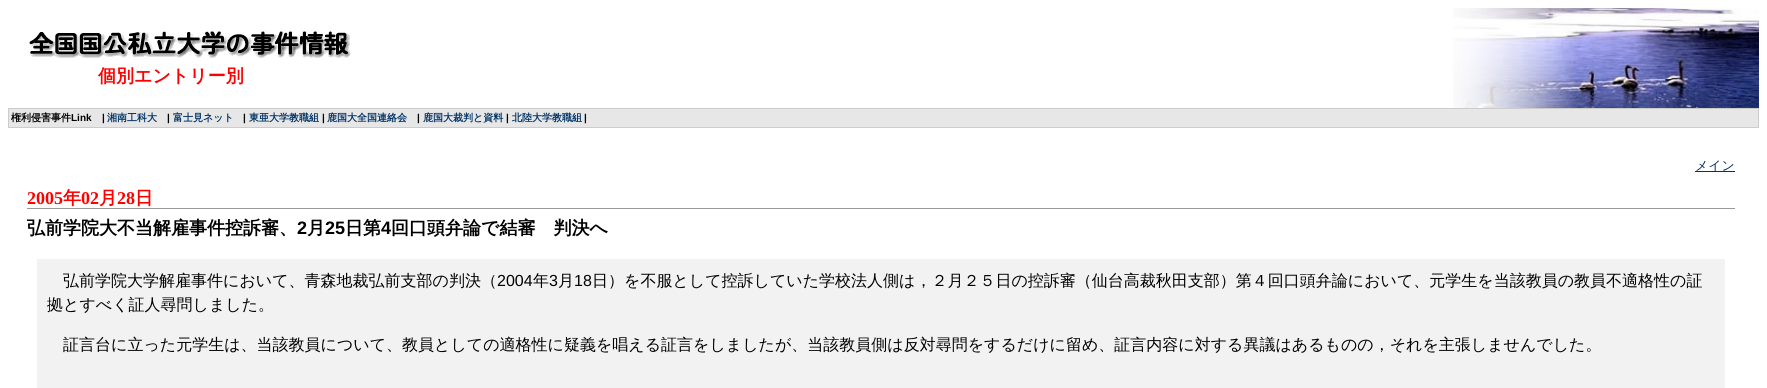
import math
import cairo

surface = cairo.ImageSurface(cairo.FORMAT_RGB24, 1767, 388)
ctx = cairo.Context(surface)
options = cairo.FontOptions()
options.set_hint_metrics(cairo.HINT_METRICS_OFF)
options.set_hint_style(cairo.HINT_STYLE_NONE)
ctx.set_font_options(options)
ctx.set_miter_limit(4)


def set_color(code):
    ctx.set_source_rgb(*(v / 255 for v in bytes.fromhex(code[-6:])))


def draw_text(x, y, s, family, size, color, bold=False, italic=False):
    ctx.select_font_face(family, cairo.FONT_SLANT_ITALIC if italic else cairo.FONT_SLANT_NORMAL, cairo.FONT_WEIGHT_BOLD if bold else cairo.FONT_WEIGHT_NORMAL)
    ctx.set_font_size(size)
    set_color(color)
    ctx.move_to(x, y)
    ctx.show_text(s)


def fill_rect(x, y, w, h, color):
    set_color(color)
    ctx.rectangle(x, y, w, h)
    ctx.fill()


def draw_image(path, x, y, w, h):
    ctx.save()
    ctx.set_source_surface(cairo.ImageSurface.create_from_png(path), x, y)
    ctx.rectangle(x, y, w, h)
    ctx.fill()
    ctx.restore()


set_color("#ffffff")
ctx.paint()
draw_image("assets/img1.png", 29, 31, 322, 27)
draw_text(98, 82, "個別エントリー別", "WenQuanYi Zen Hei", 18, "#ff0000", bold=True)
draw_image("assets/img2.png", 1453, 8, 306, 100)
fill_rect(8, 108, 1751, 20, "#cccccc")
fill_rect(9, 109, 1749, 18, "#e7e7e7")
draw_text(11, 121, "権利侵害事件", "WenQuanYi Zen Hei", 10, "#000000", bold=True)
draw_text(71, 121, "Link", "Liberation Sans", 10, "#000000", bold=True)
draw_text(102, 121, "|", "Liberation Sans", 10, "#000000", bold=True)
draw_text(107, 121, "湘南工科大", "WenQuanYi Zen Hei", 10, "#003366", bold=True)
draw_text(167, 121, "|", "Liberation Sans", 10, "#000000", bold=True)
draw_text(173, 121, "富士見ネット", "WenQuanYi Zen Hei", 10, "#003366", bold=True)
draw_text(243, 121, "|", "Liberation Sans", 10, "#000000", bold=True)
draw_text(249, 121, "東亜大学教職組", "WenQuanYi Zen Hei", 10, "#003366", bold=True)
draw_text(322, 121, "|", "Liberation Sans", 10, "#000000", bold=True)
draw_text(327, 121, "鹿国大全国連絡会", "WenQuanYi Zen Hei", 10, "#003366", bold=True)
draw_text(417, 121, "|", "Liberation Sans", 10, "#000000", bold=True)
draw_text(423, 121, "鹿国大裁判と資料", "WenQuanYi Zen Hei", 10, "#003366", bold=True)
draw_text(506, 121, "|", "Liberation Sans", 10, "#000000", bold=True)
draw_text(512, 121, "北陸大学教職組", "WenQuanYi Zen Hei", 10, "#003366", bold=True)
draw_text(584, 121, "|", "Liberation Sans", 10, "#000000", bold=True)
fill_rect(1695, 171, 40, 1, "#003366")
draw_text(1695, 170, "メイン", "WenQuanYi Zen Hei Medium", 13, "#003366")
fill_rect(27, 208, 1708, 1, "#999999")
draw_text(27, 204, "2005", "Liberation Serif", 18, "#ff0000", bold=True)
draw_text(63, 204, "年", "WenQuanYi Zen Hei", 18, "#ff0000", bold=True)
draw_text(81, 204, "02", "Liberation Serif", 18, "#ff0000", bold=True)
draw_text(99, 204, "月", "WenQuanYi Zen Hei", 18, "#ff0000", bold=True)
draw_text(117, 204, "28", "Liberation Serif", 18, "#ff0000", bold=True)
draw_text(135, 204, "日", "WenQuanYi Zen Hei", 18, "#ff0000", bold=True)
draw_text(27, 234, "弘前学院大不当解雇事件控訴審、", "WenQuanYi Zen Hei", 18, "#000000", bold=True)
draw_text(297, 234, "2", "Liberation Sans", 18, "#000000", bold=True)
draw_text(307, 234, "月", "WenQuanYi Zen Hei", 18, "#000000", bold=True)
draw_text(325, 234, "25", "Liberation Sans", 18, "#000000", bold=True)
draw_text(345, 234, "日第", "WenQuanYi Zen Hei", 18, "#000000", bold=True)
draw_text(381, 234, "4", "Liberation Sans", 18, "#000000", bold=True)
draw_text(391, 234, "回口頭弁論で結審　判決へ", "WenQuanYi Zen Hei", 18, "#000000", bold=True)
fill_rect(37, 259, 1688, 129, "#f2f2f2")
draw_text(63, 286, "弘前学院大学解雇事件において、青森地裁弘前支部の判決（", "WenQuanYi Zen Hei Medium", 16, "#000000")
draw_text(497, 286, "2004", "Liberation Sans", 16, "#000000")
draw_text(533, 286, "年", "WenQuanYi Zen Hei Medium", 16, "#000000")
draw_text(549, 286, "3", "Liberation Sans", 16, "#000000")
draw_text(558, 286, "月", "WenQuanYi Zen Hei Medium", 16, "#000000")
draw_text(574, 286, "18", "Liberation Sans", 16, "#000000")
draw_text(592, 286, "日）を不服として控訴していた学校法人側は，２月２５日の控訴審（仙台高裁秋田支部）第４回口頭弁論において、元学生を当該教員の教員不適格性の証", "WenQuanYi Zen Hei Medium", 16, "#000000")
draw_text(47, 310, "拠とすべく証人尋問しました。", "WenQuanYi Zen Hei Medium", 16, "#000000")
draw_text(63, 350, "証言台に立った元学生は、当該教員について、教員としての適格性に疑義を唱える証言をしましたが、当該教員側は反対尋問をするだけに留め、証言内容に対する異議はあるものの，それを主張しませんでした。", "WenQuanYi Zen Hei Medium", 16, "#000000")
surface.write_to_png("output.png")
